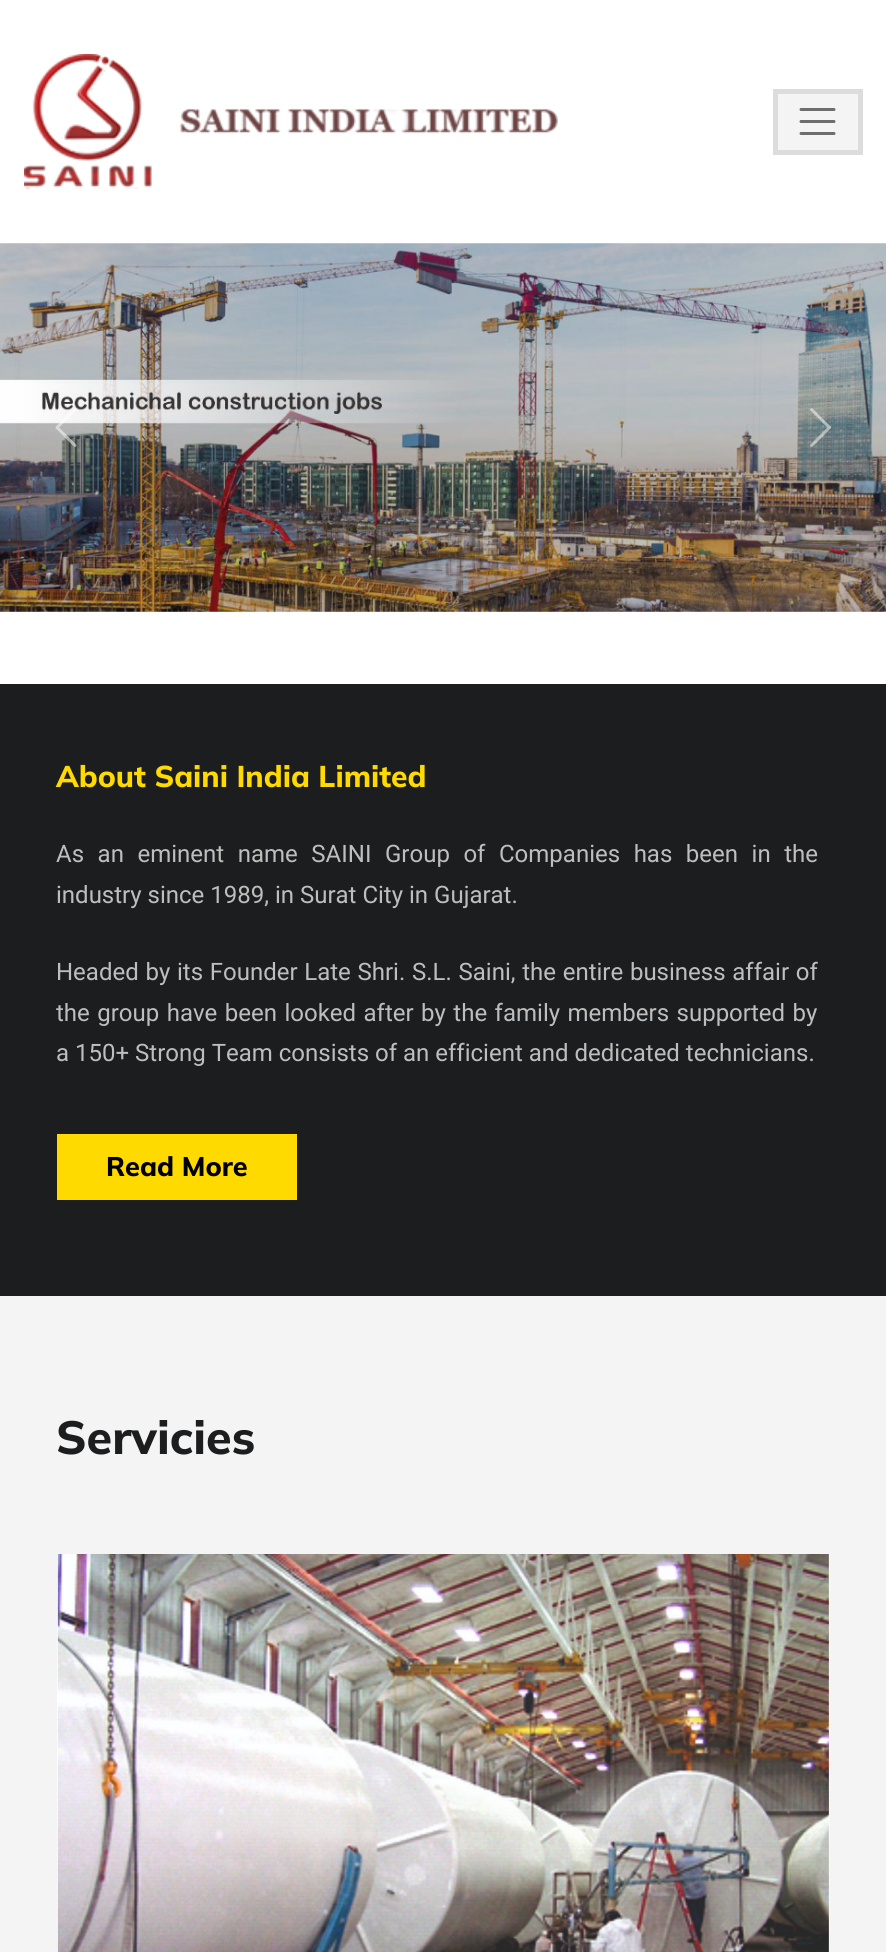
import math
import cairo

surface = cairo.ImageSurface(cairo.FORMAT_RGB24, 886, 1952)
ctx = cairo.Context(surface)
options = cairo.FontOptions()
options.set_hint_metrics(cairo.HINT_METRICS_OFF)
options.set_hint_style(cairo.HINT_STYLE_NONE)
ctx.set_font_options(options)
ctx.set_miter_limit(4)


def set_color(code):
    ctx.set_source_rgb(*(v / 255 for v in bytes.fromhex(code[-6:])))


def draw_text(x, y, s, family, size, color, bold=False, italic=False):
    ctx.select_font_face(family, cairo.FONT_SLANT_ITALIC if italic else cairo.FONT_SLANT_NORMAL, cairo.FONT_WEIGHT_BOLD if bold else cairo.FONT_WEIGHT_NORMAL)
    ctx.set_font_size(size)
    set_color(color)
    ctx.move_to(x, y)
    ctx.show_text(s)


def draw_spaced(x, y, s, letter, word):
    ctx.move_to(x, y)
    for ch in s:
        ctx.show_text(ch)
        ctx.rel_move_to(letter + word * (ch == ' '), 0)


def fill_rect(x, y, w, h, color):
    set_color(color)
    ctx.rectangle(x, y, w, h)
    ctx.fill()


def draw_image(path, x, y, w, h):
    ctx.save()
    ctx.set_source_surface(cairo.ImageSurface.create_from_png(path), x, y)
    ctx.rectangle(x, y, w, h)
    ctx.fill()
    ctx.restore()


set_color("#ffffff")
ctx.paint()
draw_image("assets/img1.png", 24, 54, 534, 135)
set_color("#f4f4f4")
ctx.rectangle(775.5, 91.5, 85, 61)
ctx.fill_preserve()
set_color("#dcdcdc")
ctx.set_line_width(5)
ctx.stroke()
ctx.new_path()
ctx.move_to(801, 109.5)
ctx.line_to(834, 109.5)
ctx.move_to(801, 121.5)
ctx.line_to(834, 121.5)
ctx.move_to(801, 133.5)
ctx.line_to(834, 133.5)
set_color("#6e6e6e")
ctx.set_line_width(3)
ctx.set_line_cap(cairo.LINE_CAP_ROUND)
ctx.stroke()
draw_image("assets/img2.png", 0, 243, 886, 369)
draw_image("assets/img3.png", 55, 408, 22, 39)
draw_image("assets/img4.png", 810, 408, 21, 39)
fill_rect(0, 684, 886, 612, "#1c1d1e")
draw_text(56, 787, "About Saini India Limited", "Mulish ExtraBold", 30, "#ffda00")
ctx.select_font_face("Roboto")
ctx.set_font_size(24)
set_color("#bebebe")
draw_spaced(56, 862, "As an eminent name SAINI Group of Companies has been in the", 0, 7.6)
draw_text(56, 903, "industry since 1989, in Surat City in Gujarat.", "Roboto", 24, "#bebebe")
draw_spaced(56, 980, "Headed by its Founder Late Shri. S.L. Saini, the entire business affair of", 0, 0.75)
draw_spaced(56, 1021, "the group have been looked after by the family members supported by", 0, 1.5)
draw_text(56, 1061, "a 150+ Strong Team consists of an efficient and dedicated technicians.", "Roboto", 24, "#bebebe")
fill_rect(57, 1134, 240, 66, "#ffda00")
draw_text(106, 1176, "Read More", "Mulish ExtraBold", 27, "#000000")
fill_rect(0, 1296, 886, 656, "#f4f4f4")
draw_text(56, 1454, "Servicies", "Mulish ExtraBold", 46.5, "#1c1d1e")
draw_image("assets/img5.png", 57, 1554, 773, 398)
surface.write_to_png("output.png")
